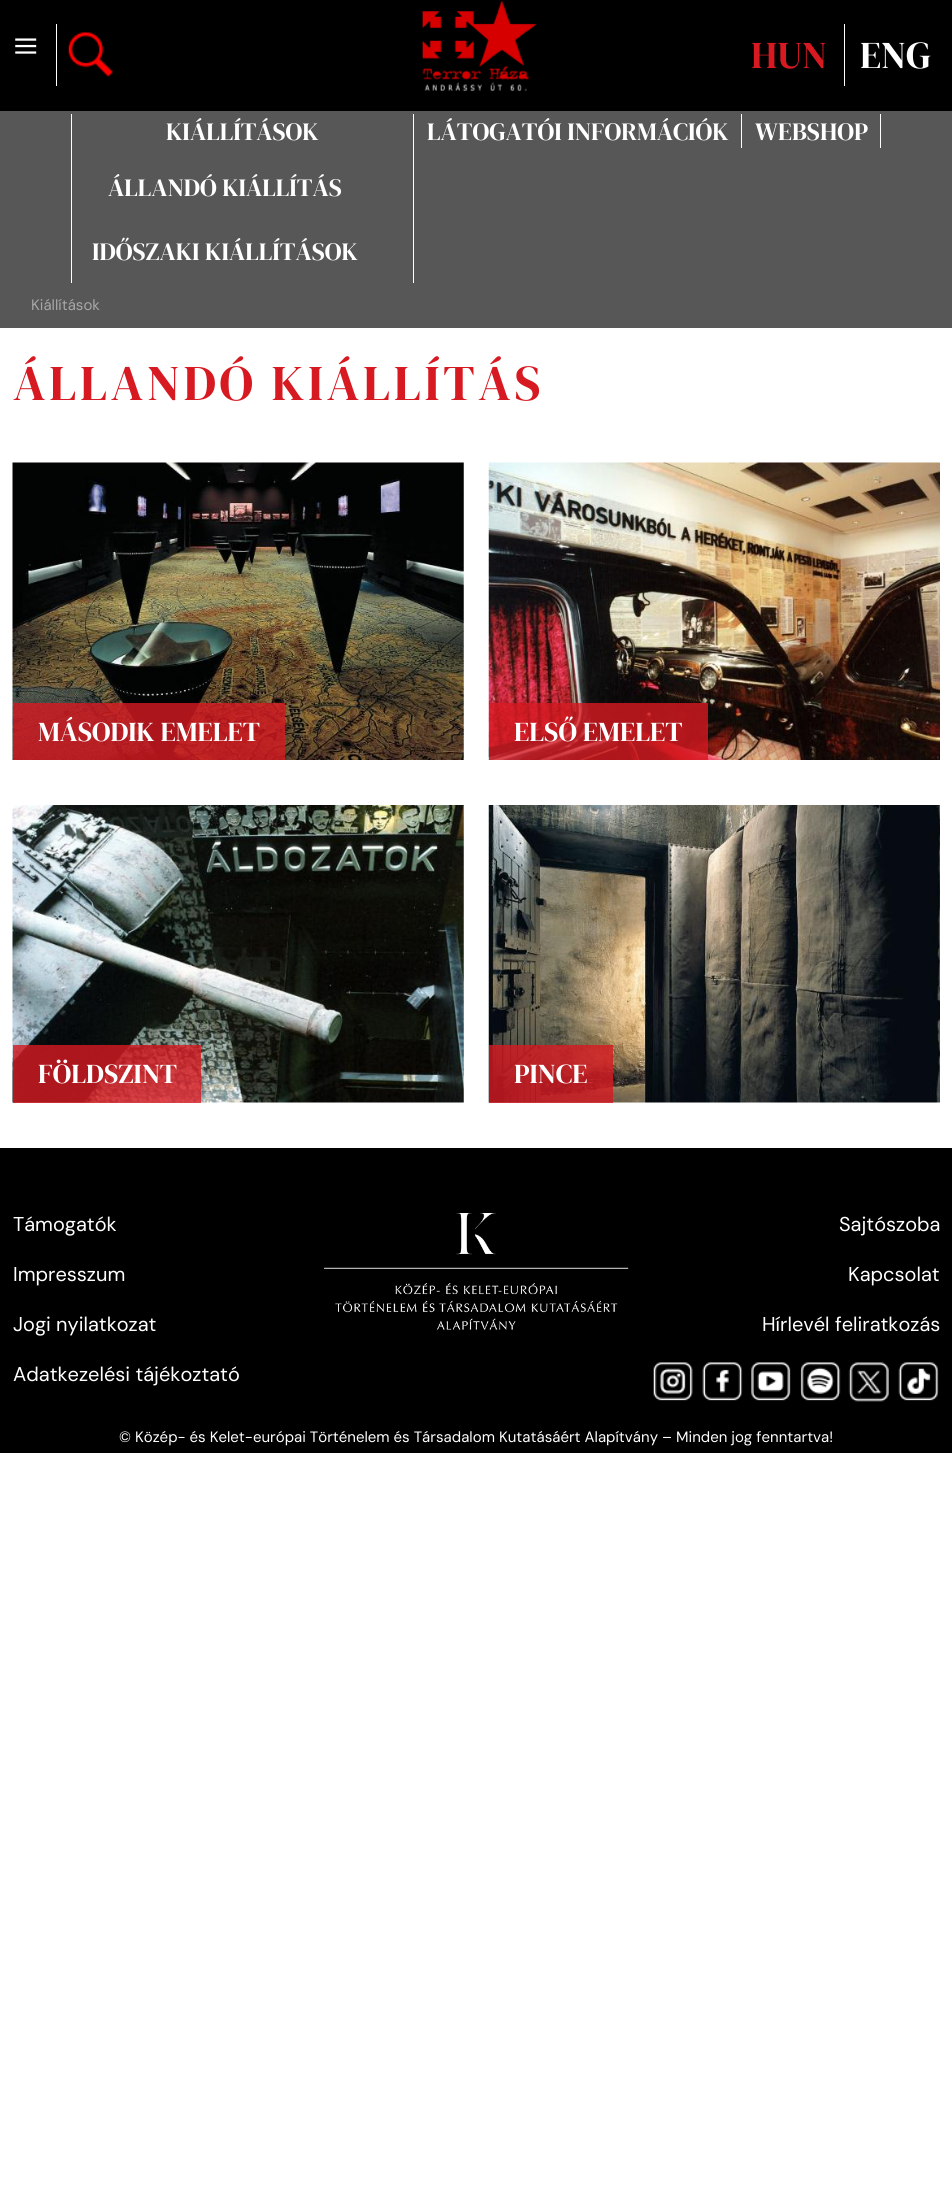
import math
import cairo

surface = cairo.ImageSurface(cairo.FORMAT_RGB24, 952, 2205)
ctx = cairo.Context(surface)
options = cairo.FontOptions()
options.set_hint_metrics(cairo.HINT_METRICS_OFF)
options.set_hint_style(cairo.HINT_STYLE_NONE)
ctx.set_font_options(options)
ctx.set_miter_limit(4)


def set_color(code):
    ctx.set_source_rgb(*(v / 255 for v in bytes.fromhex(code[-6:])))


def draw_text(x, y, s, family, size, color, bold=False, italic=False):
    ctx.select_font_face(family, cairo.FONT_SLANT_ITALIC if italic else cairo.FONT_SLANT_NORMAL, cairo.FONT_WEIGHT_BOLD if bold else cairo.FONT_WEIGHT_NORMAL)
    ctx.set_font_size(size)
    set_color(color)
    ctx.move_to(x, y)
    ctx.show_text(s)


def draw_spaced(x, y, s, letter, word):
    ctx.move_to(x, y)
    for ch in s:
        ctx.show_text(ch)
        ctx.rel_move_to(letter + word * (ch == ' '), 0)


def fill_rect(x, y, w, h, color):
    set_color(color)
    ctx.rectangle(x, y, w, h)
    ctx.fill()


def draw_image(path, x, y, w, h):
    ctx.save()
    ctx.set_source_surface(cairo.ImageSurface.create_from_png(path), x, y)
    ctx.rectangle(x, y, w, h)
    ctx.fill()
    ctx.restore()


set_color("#ffffff")
ctx.paint()
fill_rect(0, 0, 952, 111, "#000000")
fill_rect(56, 24, 1, 62, "#ffffff")
draw_text(13, 61, "≡", "Liberation Serif", 45, "#ffffff")
draw_image("assets/img1.png", 68, 32, 45, 45)
draw_image("assets/img2.png", 421, 0, 116, 92)
draw_text(751, 68, "HUN", "DM Serif Display", 38, "#d71921")
fill_rect(844, 24, 1, 62, "#ffffff")
draw_text(860, 68, "ENG", "DM Serif Display", 38, "#ffffff")
fill_rect(0, 111, 952, 217, "#575757")
fill_rect(413, 114, 1, 169, "#ffffff")
fill_rect(71, 114, 1, 169, "#ffffff")
draw_text(166, 140, "KIÁLLÍTÁSOK", "DM Serif Display", 25, "#ffffff")
draw_text(108, 196, "ÁLLANDÓ KIÁLLÍTÁS", "DM Serif Display", 25, "#ffffff")
draw_text(92, 260, "IDŐSZAKI KIÁLLÍTÁSOK", "DM Serif Display", 25, "#ffffff")
fill_rect(741, 114, 1, 34, "#ffffff")
draw_text(427, 140, "LÁTOGATÓI INFORMÁCIÓK", "DM Serif Display", 25, "#ffffff")
fill_rect(880, 114, 1, 34, "#ffffff")
draw_text(755, 140, "WEBSHOP", "DM Serif Display", 25, "#ffffff")
draw_text(31, 310, "Kiállítások", "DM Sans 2", 15, "#a7a7a7")
ctx.select_font_face("DM Serif Display")
ctx.set_font_size(50)
set_color("#d71921")
draw_spaced(13, 400, "ÁLLANDÓ KIÁLLÍTÁS", 3.75, 0)
draw_image("assets/img3.png", 12, 462, 452, 298)
ctx.set_source_rgba(0.843, 0.098, 0.129, 0.8)
ctx.rectangle(13, 703, 272, 57)
ctx.fill()
draw_text(38, 741, "MÁSODIK EMELET", "DM Serif Display", 27.5, "#ffffff")
draw_image("assets/img4.png", 488, 462, 452, 298)
ctx.set_source_rgba(0.843, 0.098, 0.129, 0.8)
ctx.rectangle(489, 703, 219, 57)
ctx.fill()
draw_text(514, 741, "ELSŐ EMELET", "DM Serif Display", 27.5, "#ffffff")
draw_image("assets/img5.png", 12, 805, 452, 298)
ctx.set_source_rgba(0.843, 0.098, 0.129, 0.8)
ctx.rectangle(13, 1045, 188, 58)
ctx.fill()
draw_text(38, 1083, "FÖLDSZINT", "DM Serif Display", 27.5, "#ffffff")
draw_image("assets/img6.png", 488, 805, 452, 298)
ctx.set_source_rgba(0.843, 0.098, 0.129, 0.8)
ctx.rectangle(489, 1045, 124, 58)
ctx.fill()
draw_text(514, 1083, "PINCE", "DM Serif Display", 27.5, "#ffffff")
fill_rect(0, 1148, 952, 305, "#000000")
draw_text(13, 1231, "Támogatók", "DM Sans", 20, "#ffffff")
draw_text(13, 1281, "Impresszum", "DM Sans", 20, "#ffffff")
draw_text(13, 1331, "Jogi nyilatkozat", "DM Sans", 20, "#ffffff")
draw_text(13, 1381, "Adatkezelési tájékoztató", "DM Sans", 20, "#ffffff")
draw_image("assets/img7.png", 324, 1213, 305, 117)
draw_text(839, 1231, "Sajtószoba", "DM Sans", 20, "#ffffff")
draw_text(848, 1281, "Kapcsolat", "DM Sans", 20, "#ffffff")
draw_text(762, 1331, "Hírlevél feliratkozás", "DM Sans", 20, "#ffffff")
draw_image("assets/img8.png", 653, 1362, 40, 39)
draw_image("assets/img9.png", 702, 1362, 41, 39)
draw_image("assets/img10.png", 751, 1362, 40, 39)
draw_image("assets/img11.png", 800, 1362, 41, 39)
draw_image("assets/img12.png", 848, 1362, 41, 40)
draw_image("assets/img13.png", 898, 1362, 41, 39)
draw_text(119, 1442, "© Közép- és Kelet-európai Történelem és Társadalom Kutatásáért Alapítvány – Minden jog fenntartva!", "DM Sans 2", 15, "#ffffff")
surface.write_to_png("output.png")
